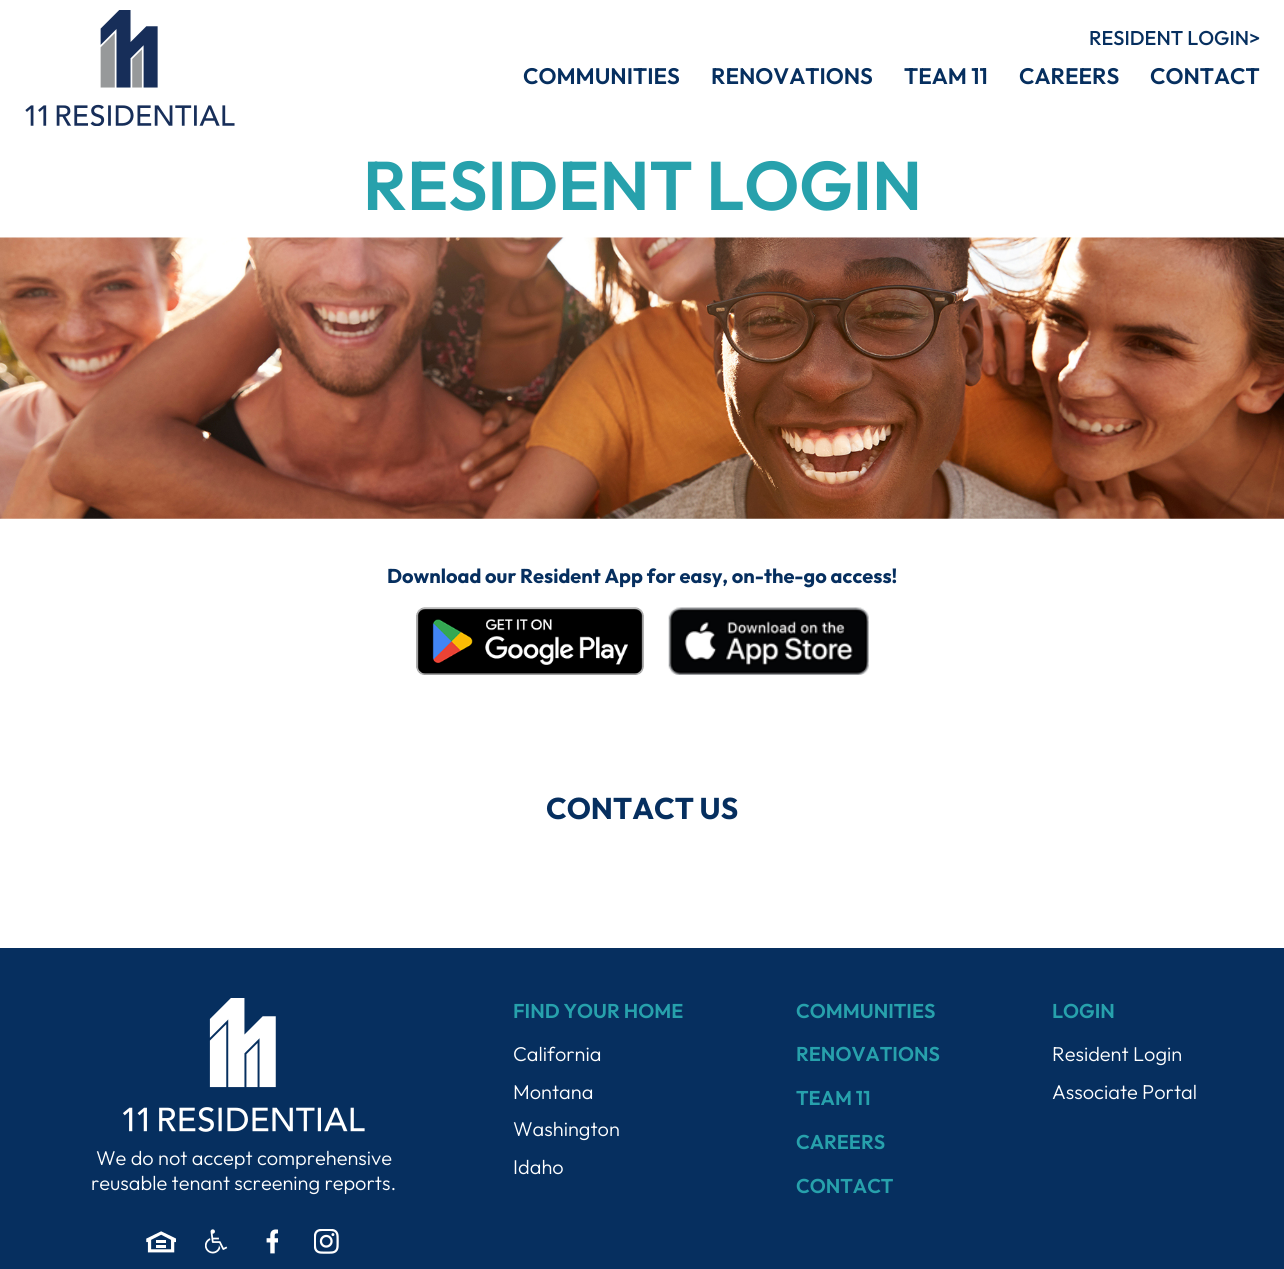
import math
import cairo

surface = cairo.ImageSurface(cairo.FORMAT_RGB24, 1284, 1269)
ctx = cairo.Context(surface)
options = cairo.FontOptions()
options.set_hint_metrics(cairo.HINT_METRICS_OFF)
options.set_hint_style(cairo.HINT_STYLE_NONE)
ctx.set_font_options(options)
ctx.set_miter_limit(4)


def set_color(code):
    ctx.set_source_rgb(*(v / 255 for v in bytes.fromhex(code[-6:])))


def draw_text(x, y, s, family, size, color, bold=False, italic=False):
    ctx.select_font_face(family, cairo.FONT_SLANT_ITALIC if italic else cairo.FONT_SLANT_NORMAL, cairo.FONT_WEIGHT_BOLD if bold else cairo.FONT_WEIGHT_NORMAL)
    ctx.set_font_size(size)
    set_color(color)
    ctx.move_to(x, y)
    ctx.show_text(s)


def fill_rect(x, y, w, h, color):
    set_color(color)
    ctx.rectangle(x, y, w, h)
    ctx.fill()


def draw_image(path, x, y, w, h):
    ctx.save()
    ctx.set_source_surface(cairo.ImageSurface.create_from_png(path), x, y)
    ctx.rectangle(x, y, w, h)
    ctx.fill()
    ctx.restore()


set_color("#ffffff")
ctx.paint()
draw_image("assets/img1.png", 25, 10, 210, 116)
draw_text(1089, 45, "RESIDENT LOGIN>", "Outfit Medium", 20, "#062f5f")
draw_text(523, 84, "COMMUNITIES", "Outfit SemiBold", 22.5, "#062f5f")
draw_text(711, 84, "RENOVATIONS", "Outfit SemiBold", 22.5, "#062f5f")
draw_text(904, 84, "TEAM 11", "Outfit SemiBold", 22.5, "#062f5f")
draw_text(1019, 84, "CAREERS", "Outfit SemiBold", 22.5, "#062f5f")
draw_text(1150, 84, "CONTACT", "Outfit SemiBold", 22.5, "#062f5f")
draw_text(363, 210, "RESIDENT LOGIN", "Outfit SemiBold", 68.75, "#27a1ac")
draw_image("assets/img2.png", 0, 237, 1284, 282)
draw_text(387, 583, "Download our Resident App for easy, on-the-go access!", "Outfit", 20, "#062f5f", bold=True)
draw_image("assets/img3.png", 416, 607, 228, 68)
draw_image("assets/img4.png", 668, 607, 201, 68)
draw_text(546, 819, "CONTACT US", "Outfit", 30, "#062f5f", bold=True)
fill_rect(0, 948, 1284, 321, "#062f5f")
draw_text(513, 1018, "FIND YOUR HOME", "Outfit SemiBold", 20, "#27a1ac")
draw_text(513, 1061, "California", "Outfit Light", 20, "#ffffff")
draw_text(513, 1099, "Montana", "Outfit Light", 20, "#ffffff")
draw_text(513, 1136, "Washington", "Outfit Light", 20, "#ffffff")
draw_text(513, 1174, "Idaho", "Outfit Light", 20, "#ffffff")
draw_text(796, 1018, "COMMUNITIES", "Outfit SemiBold", 20, "#27a1ac")
draw_text(796, 1061, "RENOVATIONS", "Outfit SemiBold", 20, "#27a1ac")
draw_text(796, 1105, "TEAM 11", "Outfit SemiBold", 20, "#27a1ac")
draw_text(796, 1149, "CAREERS", "Outfit SemiBold", 20, "#27a1ac")
draw_text(796, 1193, "CONTACT", "Outfit SemiBold", 20, "#27a1ac")
draw_text(1052, 1018, "LOGIN", "Outfit SemiBold", 20, "#27a1ac")
draw_text(1052, 1061, "Resident Login", "Outfit Light", 20, "#ffffff")
draw_text(1052, 1099, "Associate Portal", "Outfit Light", 20, "#ffffff")
draw_image("assets/img5.png", 123, 998, 242, 134)
draw_text(96, 1165, "We do not accept comprehensive", "Outfit Light", 20, "#ffffff")
draw_text(91, 1190, "reusable tenant screening reports.", "Outfit Light", 20, "#ffffff")
draw_image("assets/img6.png", 146, 1231, 30, 22)
draw_image("assets/img7.png", 205, 1229, 23, 25)
draw_image("assets/img8.png", 266, 1229, 12, 25)
draw_image("assets/img9.png", 314, 1229, 25, 25)
surface.write_to_png("output.png")
